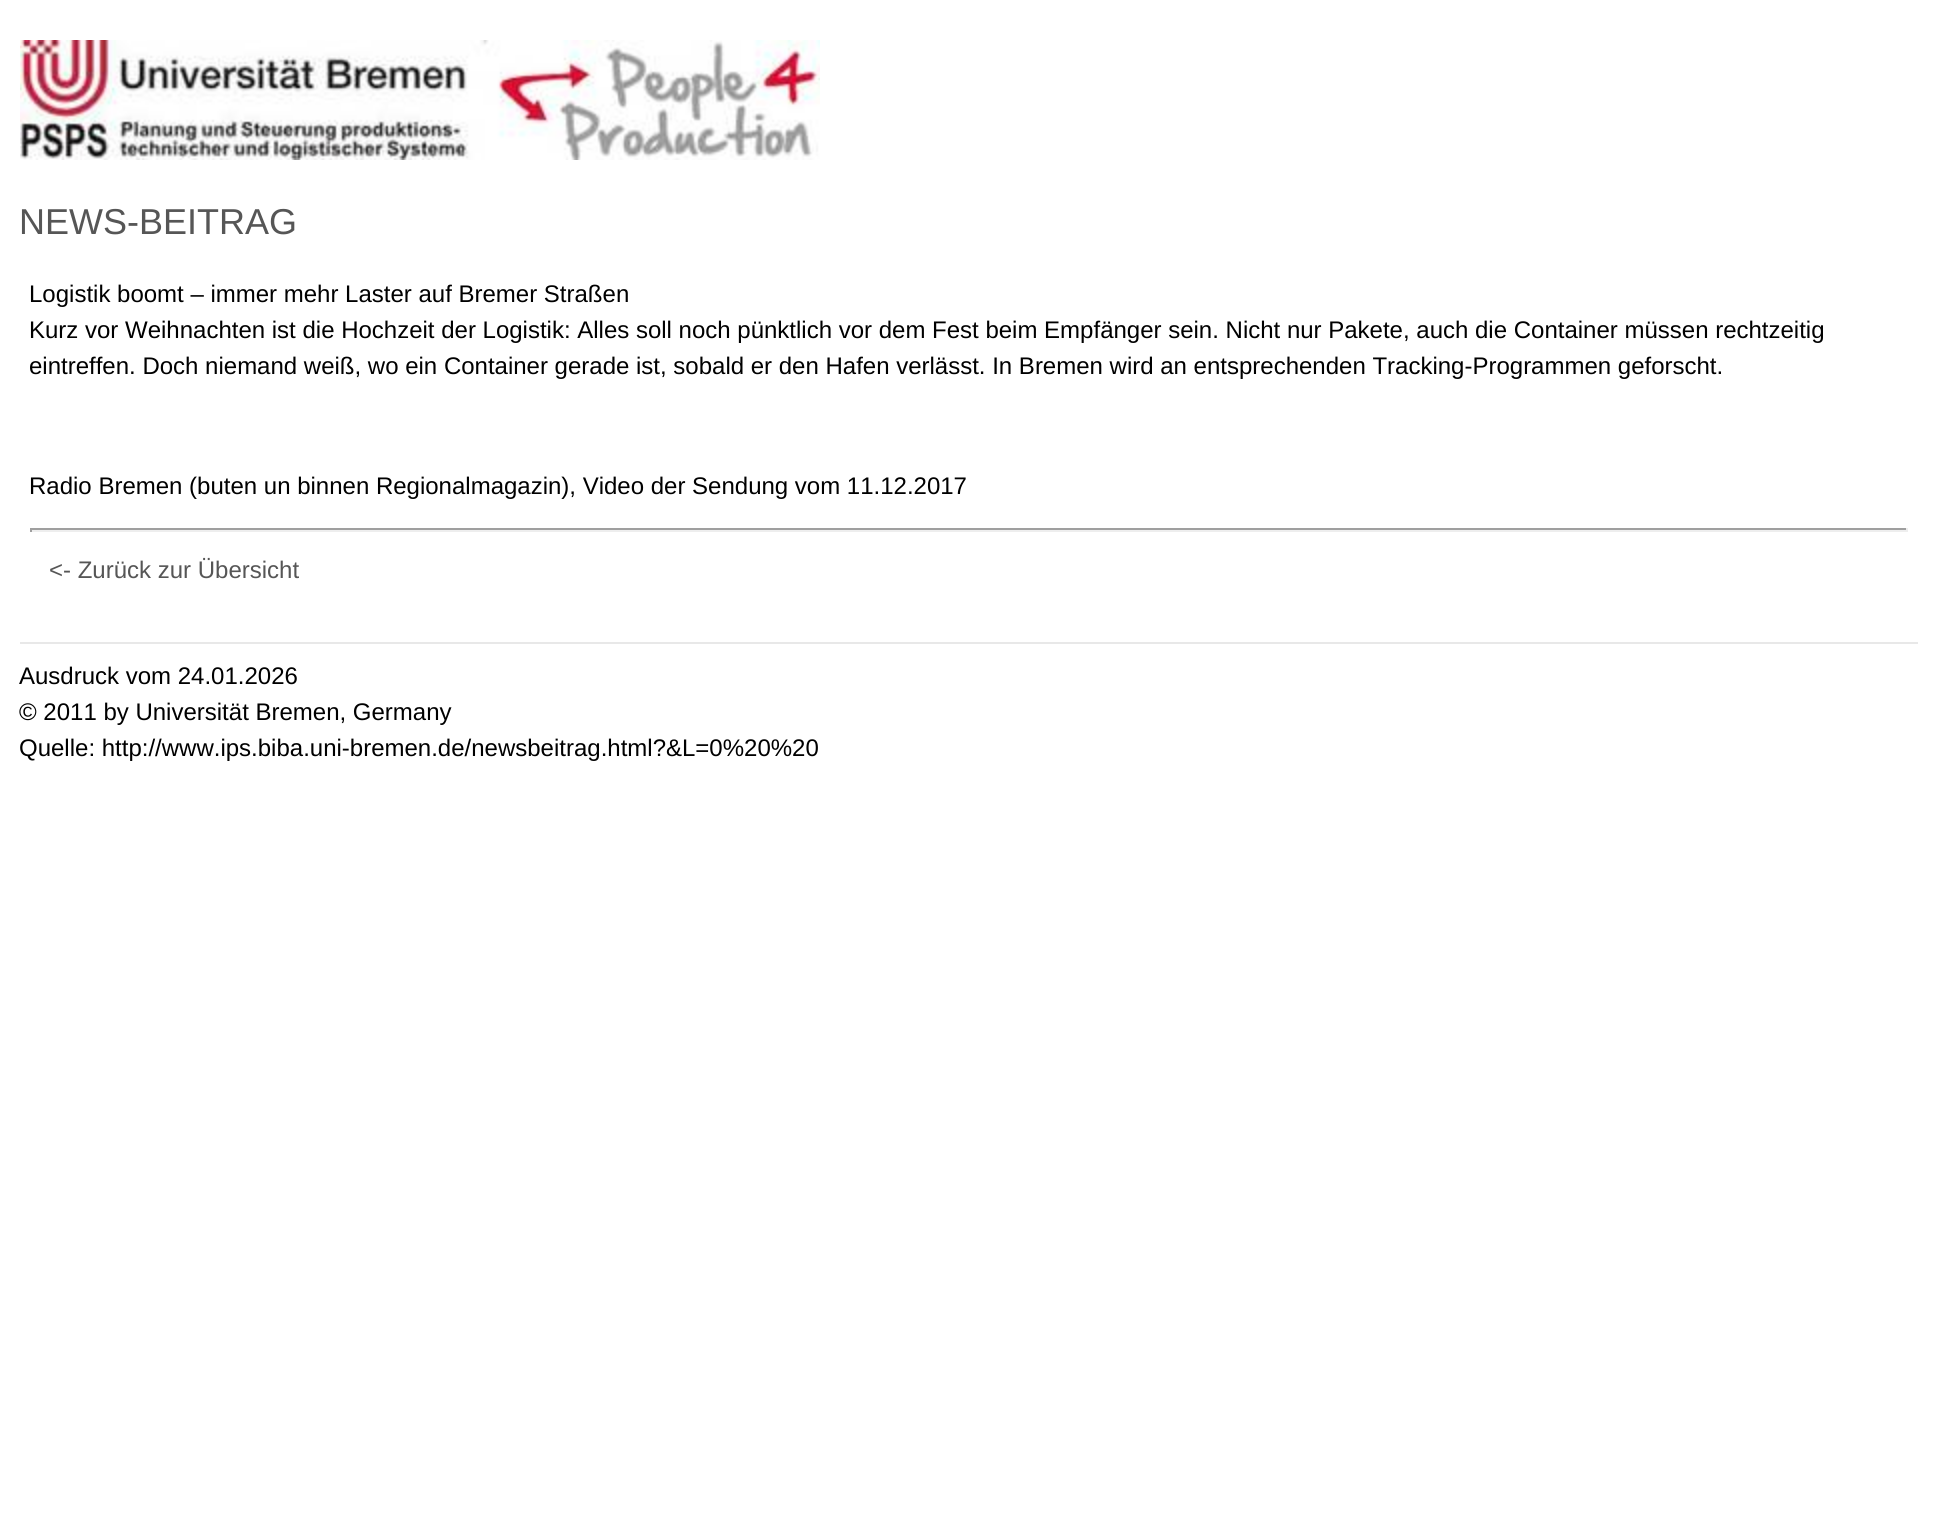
import math
import cairo

surface = cairo.ImageSurface(cairo.FORMAT_RGB24, 1937, 1518)
ctx = cairo.Context(surface)
options = cairo.FontOptions()
options.set_hint_metrics(cairo.HINT_METRICS_OFF)
options.set_hint_style(cairo.HINT_STYLE_NONE)
ctx.set_font_options(options)
ctx.set_miter_limit(4)


def set_color(code):
    ctx.set_source_rgb(*(v / 255 for v in bytes.fromhex(code[-6:])))


def draw_text(x, y, s, family, size, color, bold=False, italic=False):
    ctx.select_font_face(family, cairo.FONT_SLANT_ITALIC if italic else cairo.FONT_SLANT_NORMAL, cairo.FONT_WEIGHT_BOLD if bold else cairo.FONT_WEIGHT_NORMAL)
    ctx.set_font_size(size)
    set_color(color)
    ctx.move_to(x, y)
    ctx.show_text(s)


def fill_rect(x, y, w, h, color):
    set_color(color)
    ctx.rectangle(x, y, w, h)
    ctx.fill()


def draw_image(path, x, y, w, h):
    ctx.save()
    ctx.set_source_surface(cairo.ImageSurface.create_from_png(path), x, y)
    ctx.rectangle(x, y, w, h)
    ctx.fill()
    ctx.restore()


set_color("#ffffff")
ctx.paint()
draw_image("assets/img1.png", 20, 40, 800, 120)
draw_text(19, 234, "NEWS-BEITRAG", "Liberation Sans", 36, "#565656")
draw_text(29, 302, "Logistik boomt – immer mehr Laster auf Bremer Straßen", "Liberation Sans", 24, "#000000")
draw_text(29, 338, "Kurz vor Weihnachten ist die Hochzeit der Logistik: Alles soll noch pünktlich vor dem Fest beim Empfänger sein. Nicht nur Pakete, auch die Container müssen rechtzeitig", "Liberation Sans", 24, "#000000")
draw_text(29, 374, "eintreffen. Doch niemand weiß, wo ein Container gerade ist, sobald er den Hafen verlässt. In Bremen wird an entsprechenden Tracking-Programmen geforscht.", "Liberation Sans", 24, "#000000")
draw_text(29, 494, "Radio Bremen (buten un binnen Regionalmagazin), Video der Sendung vom 11.12.2017", "Liberation Sans", 24, "#000000")
fill_rect(30, 528, 1878, 2, "#9f9f9f")
fill_rect(1906, 528, 2, 4, "#eeeeee")
fill_rect(30, 530, 1878, 2, "#eeeeee")
fill_rect(30, 528, 2, 4, "#9f9f9f")
draw_text(49, 578, "<- Zurück zur Übersicht", "Liberation Sans", 24, "#565656")
fill_rect(20, 642, 1898, 2, "#e8e8e8")
draw_text(19, 684, "Ausdruck vom 24.01.2026", "Liberation Sans", 24, "#000000")
draw_text(19, 720, "© 2011 by Universität Bremen, Germany", "Liberation Sans", 24, "#000000")
draw_text(19, 756, "Quelle: http://www.ips.biba.uni-bremen.de/newsbeitrag.html?&L=0%20%20", "Liberation Sans", 24, "#000000")
surface.write_to_png("output.png")
